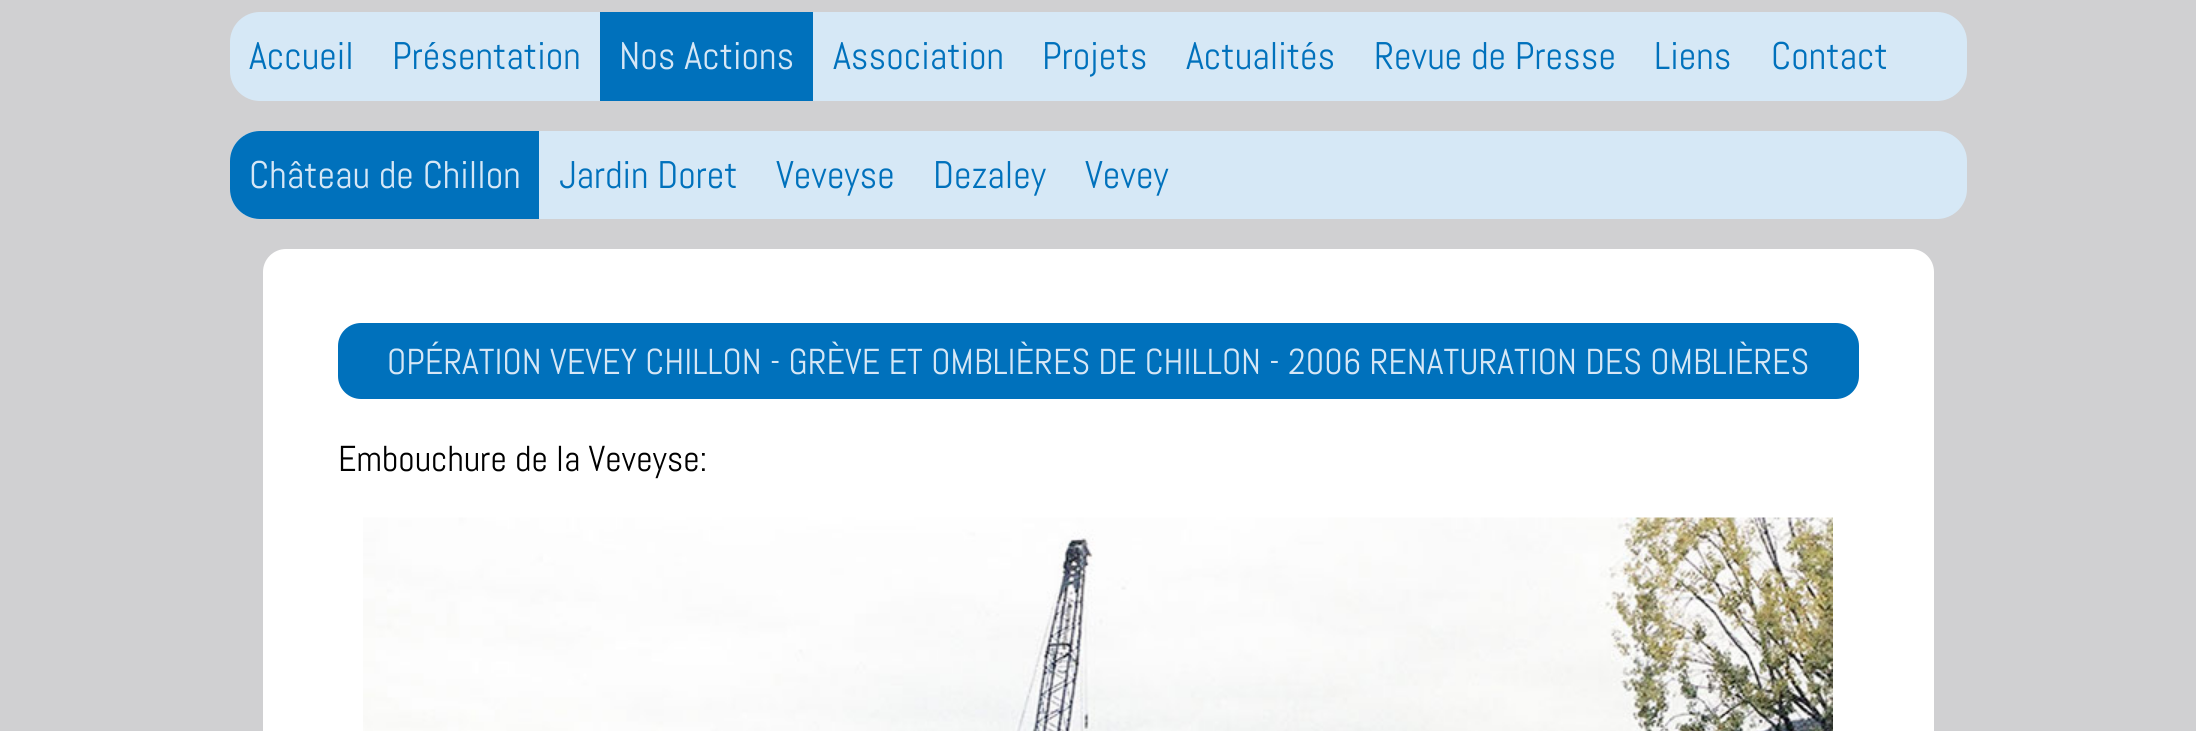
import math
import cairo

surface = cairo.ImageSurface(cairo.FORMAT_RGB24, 2196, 731)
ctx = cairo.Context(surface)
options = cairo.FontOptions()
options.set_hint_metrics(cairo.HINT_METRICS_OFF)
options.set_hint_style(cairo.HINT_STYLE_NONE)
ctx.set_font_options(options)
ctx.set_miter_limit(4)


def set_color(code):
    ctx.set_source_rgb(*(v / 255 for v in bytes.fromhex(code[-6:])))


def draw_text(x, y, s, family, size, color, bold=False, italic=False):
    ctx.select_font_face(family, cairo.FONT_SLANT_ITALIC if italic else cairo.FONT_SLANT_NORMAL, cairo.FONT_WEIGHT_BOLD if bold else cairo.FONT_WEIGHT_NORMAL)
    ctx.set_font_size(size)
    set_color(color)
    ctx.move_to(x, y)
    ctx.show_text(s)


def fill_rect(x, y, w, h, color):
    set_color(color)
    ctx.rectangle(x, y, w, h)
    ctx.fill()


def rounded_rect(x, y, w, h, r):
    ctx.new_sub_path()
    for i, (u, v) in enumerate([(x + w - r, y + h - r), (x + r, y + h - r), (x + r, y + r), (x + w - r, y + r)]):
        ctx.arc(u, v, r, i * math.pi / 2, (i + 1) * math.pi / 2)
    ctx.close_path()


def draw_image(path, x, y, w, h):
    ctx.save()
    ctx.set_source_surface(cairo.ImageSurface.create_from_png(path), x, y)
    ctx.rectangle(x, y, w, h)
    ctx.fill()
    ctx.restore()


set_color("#d0d0d2")
ctx.paint()
set_color("#d6e8f6")
rounded_rect(230, 12, 1737, 89, 30)
ctx.fill()
draw_text(249, 69, "Accueil", "Abel", 38.5, "#0071bc")
draw_text(392, 69, "Présentation", "Abel", 38.5, "#0071bc")
fill_rect(600, 12, 213, 89, "#0071bc")
draw_text(619, 69, "Nos Actions", "Abel", 38.5, "#d6e7f6")
draw_text(833, 69, "Association", "Abel", 38.5, "#0071bc")
draw_text(1042, 69, "Projets", "Abel", 38.5, "#0071bc")
draw_text(1186, 69, "Actualités", "Abel", 38.5, "#0071bc")
draw_text(1374, 69, "Revue de Presse", "Abel", 38.5, "#0071bc")
draw_text(1654, 69, "Liens", "Abel", 38.5, "#0071bc")
draw_text(1771, 69, "Contact", "Abel", 38.5, "#0071bc")
set_color("#d6e8f6")
rounded_rect(230, 131, 1737, 88, 30)
ctx.fill()
set_color("#0071bc")
ctx.new_path()
ctx.move_to(260, 131)
ctx.line_to(539, 131)
ctx.line_to(539, 219)
ctx.line_to(260, 219)
ctx.curve_to(243.5, 219, 230, 205.5, 230, 189)
ctx.line_to(230, 161)
ctx.curve_to(230, 144.5, 243.5, 131, 260, 131)
ctx.close_path()
ctx.fill()
draw_text(249, 188, "Château de Chillon", "Abel", 38.5, "#d6e7f6")
draw_text(559, 188, "Jardin Doret", "Abel", 38.5, "#0071bc")
draw_text(776, 188, "Veveyse", "Abel", 38.5, "#0071bc")
draw_text(933, 188, "Dezaley", "Abel", 38.5, "#0071bc")
draw_text(1085, 188, "Vevey", "Abel", 38.5, "#0071bc")
set_color("#ffffff")
rounded_rect(263, 249, 1671, 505, 23)
ctx.fill()
set_color("#0071bc")
rounded_rect(338, 323, 1521, 76, 23)
ctx.fill()
draw_text(387, 374, "OPÉRATION VEVEY CHILLON - GRÈVE ET OMBLIÈRES DE CHILLON - 2006 RENATURATION DES OMBLIÈRES", "Abel", 36, "#d6e7f6")
draw_text(338, 471, "Embouchure de la Veveyse:", "Abel", 36, "#000000")
draw_image("assets/img1.png", 363, 517, 1470, 214)
surface.write_to_png("output.png")
